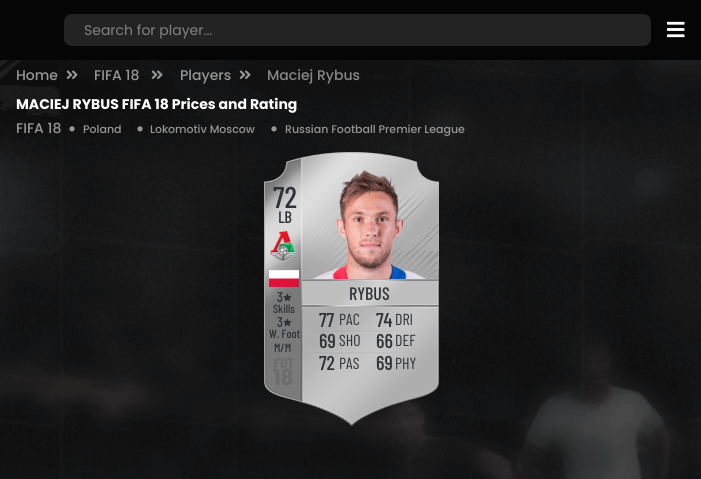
import math
import cairo

surface = cairo.ImageSurface(cairo.FORMAT_RGB24, 701, 479)
ctx = cairo.Context(surface)
options = cairo.FontOptions()
options.set_hint_metrics(cairo.HINT_METRICS_OFF)
options.set_hint_style(cairo.HINT_STYLE_NONE)
ctx.set_font_options(options)
ctx.set_miter_limit(4)


def set_color(code):
    ctx.set_source_rgb(*(v / 255 for v in bytes.fromhex(code[-6:])))


def draw_text(x, y, s, family, size, color, bold=False, italic=False):
    ctx.select_font_face(family, cairo.FONT_SLANT_ITALIC if italic else cairo.FONT_SLANT_NORMAL, cairo.FONT_WEIGHT_BOLD if bold else cairo.FONT_WEIGHT_NORMAL)
    ctx.set_font_size(size)
    set_color(color)
    ctx.move_to(x, y)
    ctx.show_text(s)


def fill_rect(x, y, w, h, color):
    set_color(color)
    ctx.rectangle(x, y, w, h)
    ctx.fill()


def rounded_rect(x, y, w, h, r):
    ctx.new_sub_path()
    for i, (u, v) in enumerate([(x + w - r, y + h - r), (x + r, y + h - r), (x + r, y + r), (x + w - r, y + r)]):
        ctx.arc(u, v, r, i * math.pi / 2, (i + 1) * math.pi / 2)
    ctx.close_path()


def draw_image(path, x, y, w, h):
    ctx.save()
    ctx.set_source_surface(cairo.ImageSurface.create_from_png(path), x, y)
    ctx.rectangle(x, y, w, h)
    ctx.fill()
    ctx.restore()


set_color("#ffffff")
ctx.paint()
fill_rect(0, 0, 701, 60, "#050505")
set_color("#232323")
rounded_rect(64, 14, 587, 32, 8)
ctx.fill()
draw_text(84, 35, "Search for player...", "Poppins", 14, "#828282")
draw_image("assets/img1.png", 667, 21, 18, 17)
draw_image("assets/img2.png", 0, 60, 701, 419)
draw_text(16, 80, "Home", "Poppins Medium", 14, "#969696")
draw_image("assets/img3.png", 66, 70, 12, 10)
draw_text(94, 80, "FIFA 18", "Poppins Medium", 14, "#969696")
draw_image("assets/img4.png", 151, 70, 12, 10)
draw_text(180, 80, "Players", "Poppins Medium", 14, "#969696")
draw_image("assets/img5.png", 239, 70, 12, 10)
draw_text(267, 80, "Maciej Rybus", "Poppins Medium", 14, "#888889")
draw_text(16, 109, "MACIEJ RYBUS FIFA 18 Prices and Rating", "Poppins", 14, "#ffffff", bold=True)
draw_text(16, 133, "FIFA 18", "Poppins Medium", 14, "#969696")
draw_image("assets/img6.png", 69, 126, 6, 6)
draw_text(83, 133, "Poland", "Poppins Medium", 11, "#969696")
draw_image("assets/img7.png", 137, 126, 6, 6)
draw_text(150, 133, "Lokomotiv Moscow", "Poppins Medium", 11, "#969696")
draw_image("assets/img8.png", 271, 126, 6, 6)
draw_text(285, 133, "Russian Football Premier League", "Poppins Medium", 11, "#969696")
draw_image("assets/img9.png", 264, 152, 175, 274)
draw_text(273, 208, "72", "Barlow Condensed Medium", 30, "#2e3136")
draw_image("assets/img10.png", 314, 169, 112, 110)
draw_text(278, 223, "LB", "Barlow Condensed", 16, "#2e3136", bold=True)
draw_image("assets/img11.png", 269, 230, 28, 32)
draw_image("assets/img12.png", 269, 270, 30, 17)
draw_text(277, 302, "3", "Barlow Condensed Medium", 14, "#2e3136")
draw_image("assets/img13.png", 283, 293, 9, 9)
draw_text(273, 313, "Skills", "Barlow Condensed Medium", 12, "#2e3136")
draw_text(349, 300, "RYBUS", "Barlow Condensed Medium", 18, "#2e3136")
draw_text(277, 327, "3", "Barlow Condensed Medium", 14, "#2e3136")
draw_image("assets/img14.png", 283, 318, 9, 9)
draw_text(269, 338, "W. Foot", "Barlow Condensed Medium", 12, "#2e3136")
draw_text(319, 327, "77", "Barlow Condensed Medium", 20, "#2e3136")
draw_text(339, 325, "PAC", "Barlow Condensed", 16, "#2e3136")
draw_text(376, 327, "74", "Barlow Condensed Medium", 20, "#2e3136")
draw_text(395, 325, "DRI", "Barlow Condensed", 16, "#2e3136")
draw_text(319, 348, "69", "Barlow Condensed Medium", 20, "#2e3136")
draw_text(339, 346, "SHO", "Barlow Condensed", 16, "#2e3136")
draw_text(376, 348, "66", "Barlow Condensed Medium", 20, "#2e3136")
draw_text(395, 346, "DEF", "Barlow Condensed", 16, "#2e3136")
draw_text(319, 370, "72", "Barlow Condensed Medium", 20, "#2e3136")
draw_text(339, 369, "PAS", "Barlow Condensed", 16, "#2e3136")
draw_text(376, 370, "69", "Barlow Condensed Medium", 20, "#2e3136")
draw_text(395, 369, "PHY", "Barlow Condensed", 16, "#2e3136")
draw_text(274, 352, "M/M", "Barlow Condensed Medium", 12, "#2e3136")
surface.write_to_png("output.png")
